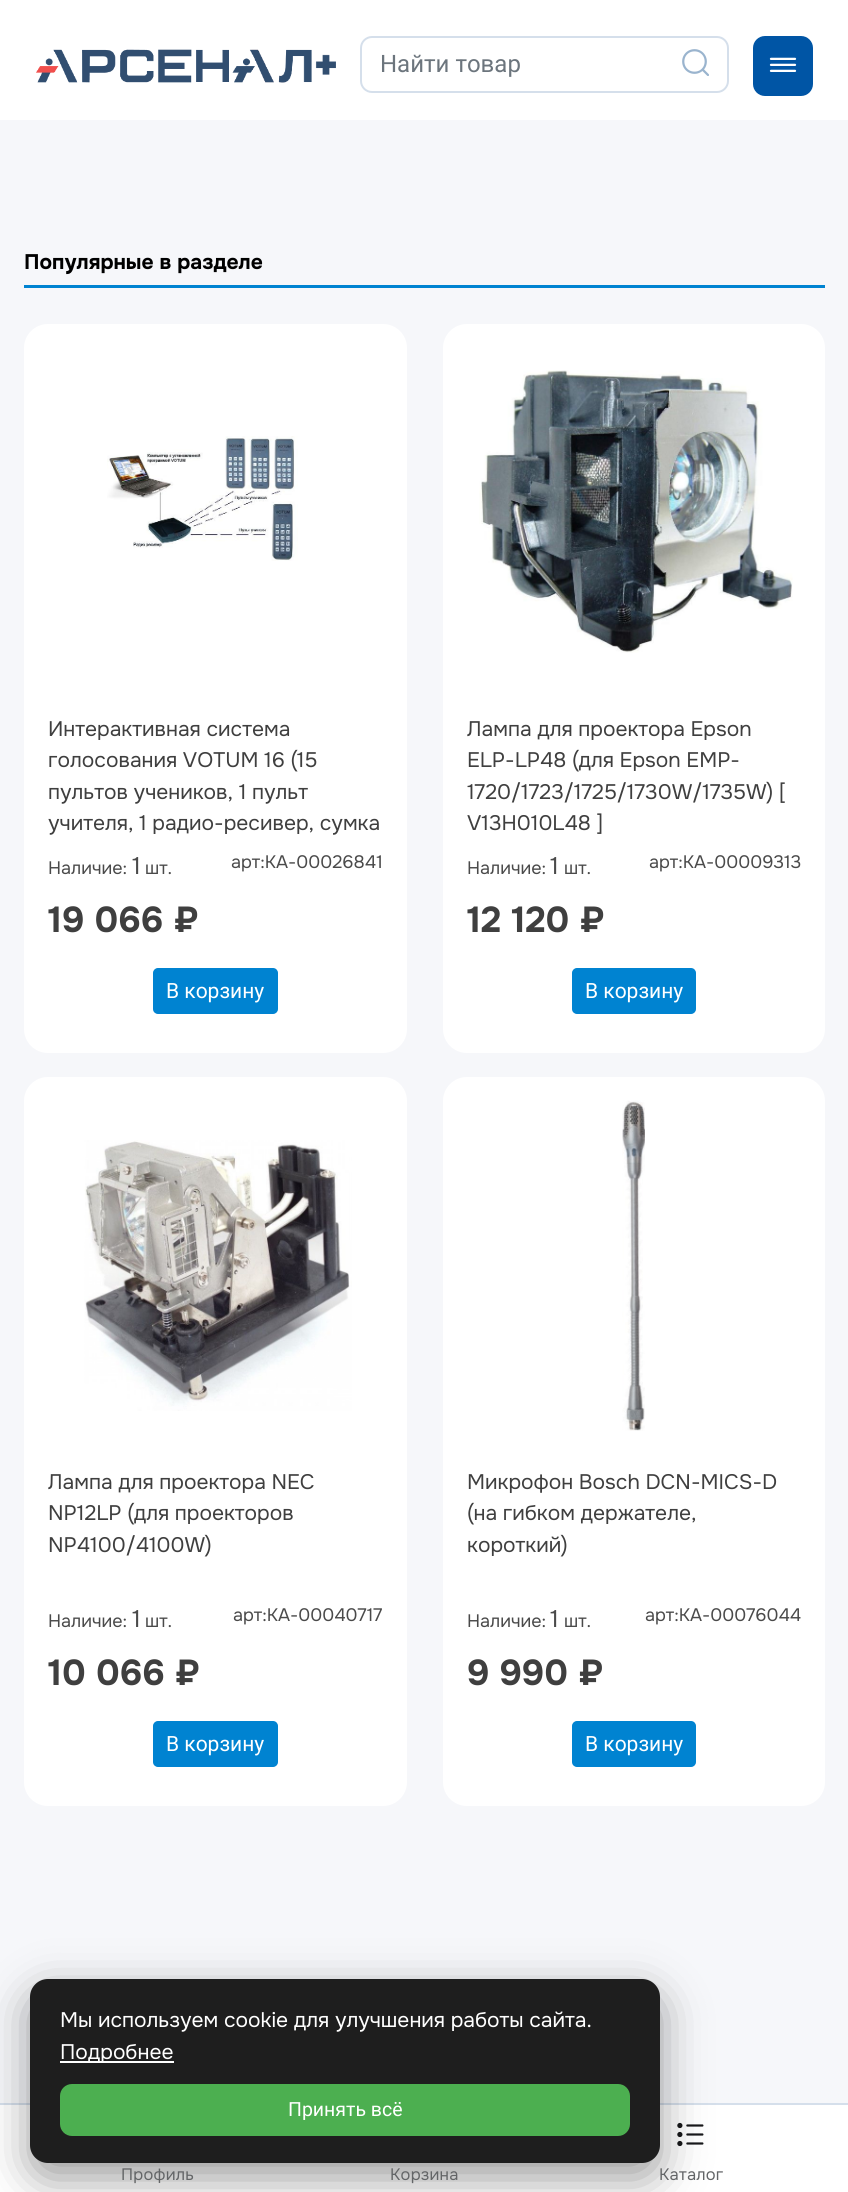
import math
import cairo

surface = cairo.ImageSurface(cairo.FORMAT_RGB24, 848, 2192)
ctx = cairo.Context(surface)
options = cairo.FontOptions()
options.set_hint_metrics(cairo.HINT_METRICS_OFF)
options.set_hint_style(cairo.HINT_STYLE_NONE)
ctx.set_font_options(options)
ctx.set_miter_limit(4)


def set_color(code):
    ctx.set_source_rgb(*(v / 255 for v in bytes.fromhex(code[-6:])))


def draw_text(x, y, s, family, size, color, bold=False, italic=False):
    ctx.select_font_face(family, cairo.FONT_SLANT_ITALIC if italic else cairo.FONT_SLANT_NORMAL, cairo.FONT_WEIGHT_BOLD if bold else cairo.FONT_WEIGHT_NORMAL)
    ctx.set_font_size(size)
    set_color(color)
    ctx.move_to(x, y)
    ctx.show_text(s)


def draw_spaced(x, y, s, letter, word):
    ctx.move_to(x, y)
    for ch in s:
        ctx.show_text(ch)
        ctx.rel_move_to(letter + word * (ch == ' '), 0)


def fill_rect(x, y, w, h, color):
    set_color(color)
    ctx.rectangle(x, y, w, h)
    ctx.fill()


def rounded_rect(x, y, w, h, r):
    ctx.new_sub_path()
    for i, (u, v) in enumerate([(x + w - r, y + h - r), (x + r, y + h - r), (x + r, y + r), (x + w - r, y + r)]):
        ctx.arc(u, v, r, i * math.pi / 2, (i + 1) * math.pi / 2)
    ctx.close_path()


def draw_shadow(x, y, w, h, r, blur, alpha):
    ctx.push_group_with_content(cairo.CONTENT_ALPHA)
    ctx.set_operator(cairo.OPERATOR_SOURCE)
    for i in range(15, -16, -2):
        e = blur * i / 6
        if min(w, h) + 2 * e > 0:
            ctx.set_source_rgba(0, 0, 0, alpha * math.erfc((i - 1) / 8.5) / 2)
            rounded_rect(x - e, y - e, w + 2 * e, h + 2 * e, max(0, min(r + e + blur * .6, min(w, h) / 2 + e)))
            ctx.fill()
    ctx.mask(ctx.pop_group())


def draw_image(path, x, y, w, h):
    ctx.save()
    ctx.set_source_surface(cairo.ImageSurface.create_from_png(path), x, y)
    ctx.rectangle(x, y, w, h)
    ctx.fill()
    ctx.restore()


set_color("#f6f7fa")
ctx.paint()
fill_rect(0, 0, 848, 120, "#ffffff")
draw_image("assets/img1.png", 36, 49, 300, 34)
rounded_rect(361, 37, 367, 55, 11)
set_color("#d5dfeb")
ctx.stroke()
draw_text(380, 72, "Найти товар", "Roboto", 24, "#6c757d")
draw_image("assets/img2.png", 682, 49, 27, 27)
set_color("#0055a5")
rounded_rect(753, 36, 60, 60, 12)
ctx.fill()
draw_image("assets/img3.png", 769, 57, 28, 15)
fill_rect(24, 285, 801, 3, "#0083d1")
draw_text(24, 269, "Популярные в разделе", "Onest", 21, "#000000", bold=True)
set_color("#ffffff")
rounded_rect(24, 324, 383, 729, 24)
ctx.fill()
draw_image("assets/img4.png", 107, 436, 191, 125)
draw_text(48, 736, "Интерактивная система", "Onest", 21, "#3f3f3f")
draw_text(48, 767, "голосования VOTUM 16 (15", "Onest", 21, "#3f3f3f")
draw_text(48, 799, "пультов учеников, 1 пульт", "Onest", 21, "#3f3f3f")
draw_text(48, 830, "учителя, 1 радио-ресивер, сумка", "Onest", 21, "#3f3f3f")
draw_text(48, 874, "Наличие:", "Onest", 18, "#4a4a4a")
draw_text(132, 874, "1", "Onest", 24, "#4a4a4a")
draw_text(145, 874, "шт.", "Onest", 18, "#4a4a4a")
draw_text(231, 868, "арт:КА-00026841", "Onest", 18, "#4a4a4a")
draw_text(48, 932, "19 066 ₽", "Onest", 36, "#3f3f3f", bold=True)
set_color("#0083d1")
rounded_rect(154, 969, 123, 44, 4)
ctx.fill_preserve()
ctx.stroke()
draw_text(166, 998, "В корзину", "Roboto", 21, "#ffffff")
rounded_rect(443, 324, 382, 729, 24)
ctx.fill()
draw_image("assets/img5.png", 479, 370, 314, 283)
draw_text(467, 736, "Лампа для проектора Epson", "Onest", 21, "#3f3f3f")
draw_text(467, 767, "ELP-LP48 (для Epson EMP-", "Onest", 21, "#3f3f3f")
draw_text(467, 799, "1720/1723/1725/1730W/1735W) [", "Onest", 21, "#3f3f3f")
draw_text(467, 830, "V13H010L48 ]", "Onest", 21, "#3f3f3f")
draw_text(467, 874, "Наличие:", "Onest", 18, "#4a4a4a")
draw_text(550, 874, "1", "Onest", 24, "#4a4a4a")
draw_text(564, 874, "шт.", "Onest", 18, "#4a4a4a")
draw_text(649, 868, "арт:КА-00009313", "Onest", 18, "#4a4a4a")
draw_text(467, 932, "12 120 ₽", "Onest", 36, "#3f3f3f", bold=True)
set_color("#0083d1")
rounded_rect(573, 969, 122, 44, 4)
ctx.fill_preserve()
ctx.stroke()
draw_text(585, 998, "В корзину", "Roboto", 21, "#ffffff")
rounded_rect(24, 1077, 383, 729, 24)
ctx.fill()
draw_image("assets/img6.png", 84, 1140, 268, 271)
draw_text(48, 1489, "Лампа для проектора NEC", "Onest", 21, "#3f3f3f")
draw_text(48, 1520, "NP12LP (для проекторов", "Onest", 21, "#3f3f3f")
draw_text(48, 1552, "NP4100/4100W)", "Onest", 21, "#3f3f3f")
draw_text(48, 1627, "Наличие:", "Onest", 18, "#4a4a4a")
draw_text(132, 1627, "1", "Onest", 24, "#4a4a4a")
draw_text(145, 1627, "шт.", "Onest", 18, "#4a4a4a")
draw_text(233, 1621, "арт:КА-00040717", "Onest", 18, "#4a4a4a")
draw_text(48, 1685, "10 066 ₽", "Onest", 36, "#3f3f3f", bold=True)
set_color("#0083d1")
rounded_rect(154, 1722, 123, 44, 4)
ctx.fill_preserve()
ctx.stroke()
draw_text(166, 1751, "В корзину", "Roboto", 21, "#ffffff")
rounded_rect(443, 1077, 382, 729, 24)
ctx.fill()
draw_image("assets/img7.png", 622, 1100, 23, 331)
draw_text(467, 1489, "Микрофон Bosch DCN-MICS-D", "Onest", 21, "#3f3f3f")
draw_text(467, 1520, "(на гибком держателе,", "Onest", 21, "#3f3f3f")
draw_text(467, 1552, "короткий)", "Onest", 21, "#3f3f3f")
draw_text(467, 1627, "Наличие:", "Onest", 18, "#4a4a4a")
draw_text(550, 1627, "1", "Onest", 24, "#4a4a4a")
draw_text(564, 1627, "шт.", "Onest", 18, "#4a4a4a")
draw_text(645, 1621, "арт:КА-00076044", "Onest", 18, "#4a4a4a")
draw_text(467, 1685, "9 990 ₽", "Onest", 36, "#3f3f3f", bold=True)
set_color("#0083d1")
rounded_rect(573, 1722, 122, 44, 4)
ctx.fill_preserve()
ctx.stroke()
draw_text(585, 1751, "В корзину", "Roboto", 21, "#ffffff")
fill_rect(0, 2105, 848, 87, "#ffffff")
fill_rect(0, 2103, 848, 2, "#d5dfeb")
draw_image("assets/img8.png", 677, 2122, 27, 25)
set_color("#000000")
draw_shadow(30, 1994, 630, 184, 18, 22.5, 0.4)
set_color("#1e1e1e")
rounded_rect(30, 1979, 630, 184, 18)
ctx.fill()
draw_text(60, 2027, "Мы используем cookie для улучшения работы сайта.", "Onest", 21, "#ffffff")
fill_rect(60, 2061, 114, 2, "#ffffff")
draw_text(60, 2059, "Подробнее", "Onest", 21, "#ffffff")
set_color("#4caf50")
rounded_rect(60, 2084, 570, 52, 12)
ctx.fill()
draw_text(288, 2116, "Принять всё", "Roboto", 19.5, "#ffffff")
ctx.select_font_face("Onest")
ctx.set_font_size(16.5)
set_color("#636567")
draw_spaced(121, 2180, "Профиль", 0.25, 0)
draw_spaced(390, 2180, "Корзина", 0.25, 0)
draw_spaced(659, 2180, "Каталог", 0.25, 0)
surface.write_to_png("output.png")
